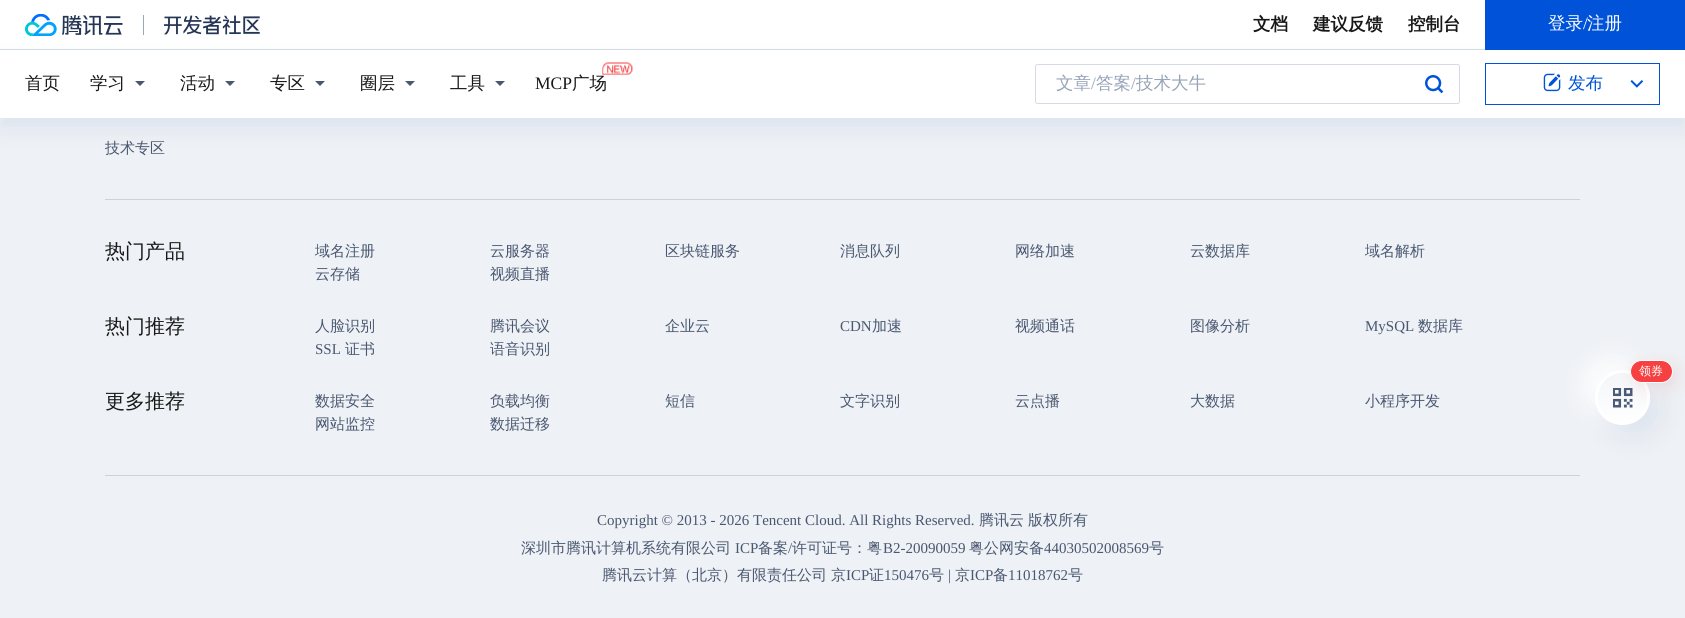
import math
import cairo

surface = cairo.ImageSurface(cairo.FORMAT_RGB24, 1685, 618)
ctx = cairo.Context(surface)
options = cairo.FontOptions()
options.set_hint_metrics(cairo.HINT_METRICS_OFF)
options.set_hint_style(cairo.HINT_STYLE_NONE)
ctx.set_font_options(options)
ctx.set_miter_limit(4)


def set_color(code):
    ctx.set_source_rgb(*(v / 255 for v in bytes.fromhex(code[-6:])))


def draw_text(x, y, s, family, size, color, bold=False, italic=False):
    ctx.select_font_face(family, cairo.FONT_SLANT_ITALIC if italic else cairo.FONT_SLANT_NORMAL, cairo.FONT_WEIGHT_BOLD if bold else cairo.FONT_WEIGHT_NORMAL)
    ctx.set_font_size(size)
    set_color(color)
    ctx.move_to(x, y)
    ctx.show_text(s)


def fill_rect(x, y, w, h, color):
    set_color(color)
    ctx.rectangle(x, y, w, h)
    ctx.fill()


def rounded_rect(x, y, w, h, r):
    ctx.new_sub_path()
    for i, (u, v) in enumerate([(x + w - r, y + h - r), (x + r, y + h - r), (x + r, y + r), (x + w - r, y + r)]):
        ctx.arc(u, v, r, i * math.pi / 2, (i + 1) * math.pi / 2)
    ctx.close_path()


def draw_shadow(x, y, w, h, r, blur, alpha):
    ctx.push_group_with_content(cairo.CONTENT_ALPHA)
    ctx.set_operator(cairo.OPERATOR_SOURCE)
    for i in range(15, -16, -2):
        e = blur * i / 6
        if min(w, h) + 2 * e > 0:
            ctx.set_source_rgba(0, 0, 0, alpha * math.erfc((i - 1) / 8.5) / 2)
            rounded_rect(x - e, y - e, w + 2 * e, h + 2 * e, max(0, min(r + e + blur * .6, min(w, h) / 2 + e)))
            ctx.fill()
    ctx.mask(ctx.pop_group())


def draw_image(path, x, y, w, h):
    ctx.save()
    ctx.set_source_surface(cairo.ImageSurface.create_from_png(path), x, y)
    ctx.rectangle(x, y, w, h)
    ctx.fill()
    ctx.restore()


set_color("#eef1f5")
ctx.paint()
fill_rect(0, 0, 1485, 49, "#ffffff")
fill_rect(0, 49, 1485, 1, "#d6dbe3")
draw_image("assets/img1.png", 25, 14, 98, 22)
fill_rect(143, 15, 1, 20, "#9ba6b7")
draw_image("assets/img2.png", 164, 15, 96, 20)
draw_text(1253, 30, "文档", "WenQuanYi Zen Hei", 17.5, "#181818", bold=True)
draw_text(1313, 30, "建议反馈", "WenQuanYi Zen Hei", 17.5, "#181818", bold=True)
draw_text(1408, 30, "控制台", "WenQuanYi Zen Hei", 17.5, "#181818", bold=True)
fill_rect(1485, 0, 200, 50, "#0052d9")
draw_text(1548, 29, "登录", "WenQuanYi Zen Hei Medium", 17.5, "#ffffff")
draw_text(1583, 29, "/", "Liberation Serif", 17.5, "#ffffff")
draw_text(1587, 29, "注册", "WenQuanYi Zen Hei Medium", 17.5, "#ffffff")
set_color("#3763aa")
draw_shadow(0, 60, 1685, 68, 0, 10, 0.1)
fill_rect(0, 50, 1685, 68, "#ffffff")
draw_text(25, 89, "首页", "WenQuanYi Zen Hei Medium", 17.5, "#181818")
draw_text(90, 89, "学习", "WenQuanYi Zen Hei Medium", 17.5, "#181818")
set_color("#495770")
ctx.set_fill_rule(cairo.FILL_RULE_EVEN_ODD)
ctx.new_path()
ctx.move_to(140, 86)
ctx.line_to(145, 81)
ctx.line_to(135, 81)
ctx.close_path()
ctx.fill()
draw_text(180, 89, "活动", "WenQuanYi Zen Hei Medium", 17.5, "#181818")
set_color("#495770")
ctx.new_path()
ctx.move_to(230, 86)
ctx.line_to(235, 81)
ctx.line_to(225, 81)
ctx.close_path()
ctx.fill()
draw_text(270, 89, "专区", "WenQuanYi Zen Hei Medium", 17.5, "#181818")
set_color("#495770")
ctx.new_path()
ctx.move_to(320, 86)
ctx.line_to(325, 81)
ctx.line_to(315, 81)
ctx.close_path()
ctx.fill()
draw_text(360, 89, "圈层", "WenQuanYi Zen Hei Medium", 17.5, "#181818")
set_color("#495770")
ctx.new_path()
ctx.move_to(410, 86)
ctx.line_to(415, 81)
ctx.line_to(405, 81)
ctx.close_path()
ctx.fill()
draw_text(450, 89, "工具", "WenQuanYi Zen Hei Medium", 17.5, "#181818")
set_color("#495770")
ctx.new_path()
ctx.move_to(500, 86)
ctx.line_to(505, 81)
ctx.line_to(495, 81)
ctx.close_path()
ctx.fill()
draw_text(572, 89, "广场", "WenQuanYi Zen Hei Medium", 17.5, "#181818")
draw_image("assets/img3.png", 602, 62, 31, 13)
draw_text(535, 89, "MCP", "Liberation Serif", 17.5, "#181818")
rounded_rect(1035.5, 64.5, 424, 39, 2)
set_color("#d6dbe3")
ctx.set_line_width(1)
ctx.stroke()
draw_text(1056, 89, "文章", "WenQuanYi Zen Hei Medium", 17.5, "#97a3b7")
draw_text(1091, 89, "/", "Liberation Serif", 17.5, "#97a3b7")
draw_text(1096, 89, "答案", "WenQuanYi Zen Hei Medium", 17.5, "#97a3b7")
draw_text(1131, 89, "/", "Liberation Serif", 17.5, "#97a3b7")
draw_text(1136, 89, "技术大牛", "WenQuanYi Zen Hei Medium", 17.5, "#97a3b7")
draw_image("assets/img4.png", 1425, 75, 19, 19)
ctx.rectangle(1485.5, 63.5, 174, 41)
set_color("#0052d9")
ctx.stroke()
draw_image("assets/img5.png", 1543, 73, 18, 19)
draw_text(1568, 89, "发布", "WenQuanYi Zen Hei Medium", 17.5, "#0052d9")
draw_image("assets/img6.png", 1630, 80, 14, 8)
fill_rect(105, 199, 1475, 1, "#cdd2da")
draw_text(105, 153, "技术专区", "WenQuanYi Zen Hei Medium", 15, "#495770")
fill_rect(105, 475, 1475, 1, "#cdd2da")
draw_text(105, 258, "热门产品", "WenQuanYi Zen Hei Medium", 20, "#181818")
draw_text(315, 256, "域名注册", "WenQuanYi Zen Hei Medium", 15, "#495770")
draw_text(490, 256, "云服务器", "WenQuanYi Zen Hei Medium", 15, "#495770")
draw_text(665, 256, "区块链服务", "WenQuanYi Zen Hei Medium", 15, "#495770")
draw_text(840, 256, "消息队列", "WenQuanYi Zen Hei Medium", 15, "#495770")
draw_text(1015, 256, "网络加速", "WenQuanYi Zen Hei Medium", 15, "#495770")
draw_text(1190, 256, "云数据库", "WenQuanYi Zen Hei Medium", 15, "#495770")
draw_text(1365, 256, "域名解析", "WenQuanYi Zen Hei Medium", 15, "#495770")
draw_text(315, 279, "云存储", "WenQuanYi Zen Hei Medium", 15, "#495770")
draw_text(490, 279, "视频直播", "WenQuanYi Zen Hei Medium", 15, "#495770")
draw_text(105, 333, "热门推荐", "WenQuanYi Zen Hei Medium", 20, "#181818")
draw_text(315, 331, "人脸识别", "WenQuanYi Zen Hei Medium", 15, "#495770")
draw_text(490, 331, "腾讯会议", "WenQuanYi Zen Hei Medium", 15, "#495770")
draw_text(665, 331, "企业云", "WenQuanYi Zen Hei Medium", 15, "#495770")
draw_text(840, 331, "CDN", "Liberation Serif", 15, "#495770")
draw_text(872, 331, "加速", "WenQuanYi Zen Hei Medium", 15, "#495770")
draw_text(1015, 331, "视频通话", "WenQuanYi Zen Hei Medium", 15, "#495770")
draw_text(1190, 331, "图像分析", "WenQuanYi Zen Hei Medium", 15, "#495770")
draw_text(1365, 331, "MySQL", "Liberation Serif", 15, "#495770")
draw_text(1418, 331, "数据库", "WenQuanYi Zen Hei Medium", 15, "#495770")
draw_text(315, 354, "SSL", "Liberation Serif", 15, "#495770")
draw_text(345, 354, "证书", "WenQuanYi Zen Hei Medium", 15, "#495770")
draw_text(490, 354, "语音识别", "WenQuanYi Zen Hei Medium", 15, "#495770")
draw_text(105, 408, "更多推荐", "WenQuanYi Zen Hei Medium", 20, "#181818")
draw_text(315, 406, "数据安全", "WenQuanYi Zen Hei Medium", 15, "#495770")
draw_text(490, 406, "负载均衡", "WenQuanYi Zen Hei Medium", 15, "#495770")
draw_text(665, 406, "短信", "WenQuanYi Zen Hei Medium", 15, "#495770")
draw_text(840, 406, "文字识别", "WenQuanYi Zen Hei Medium", 15, "#495770")
draw_text(1015, 406, "云点播", "WenQuanYi Zen Hei Medium", 15, "#495770")
draw_text(1190, 406, "大数据", "WenQuanYi Zen Hei Medium", 15, "#495770")
draw_text(1365, 406, "小程序开发", "WenQuanYi Zen Hei Medium", 15, "#495770")
draw_text(315, 429, "网站监控", "WenQuanYi Zen Hei Medium", 15, "#495770")
draw_text(490, 429, "数据迁移", "WenQuanYi Zen Hei Medium", 15, "#495770")
draw_text(597, 525, "Copyright © 2013 - 2026 Tencent Cloud. All Rights Reserved.", "Liberation Serif", 15, "#495770")
draw_text(979, 525, "腾讯云", "WenQuanYi Zen Hei Medium", 15, "#495770")
draw_text(1028, 525, "版权所有", "WenQuanYi Zen Hei Medium", 15, "#495770")
draw_text(521, 553, "深圳市腾讯计算机系统有限公司", "WenQuanYi Zen Hei Medium", 15, "#495770")
draw_text(735, 553, "ICP", "Liberation Serif", 15, "#495770")
draw_text(758, 553, "备案", "WenQuanYi Zen Hei Medium", 15, "#495770")
draw_text(788, 553, "/", "Liberation Serif", 15, "#495770")
draw_text(792, 553, "许可证号：粤", "WenQuanYi Zen Hei Medium", 15, "#495770")
draw_text(883, 553, "B2-20090059", "Liberation Serif", 15, "#495770")
draw_text(969, 553, "粤公网安备", "WenQuanYi Zen Hei Medium", 15, "#495770")
draw_text(1044, 553, "44030502008569", "Liberation Serif", 15, "#495770")
draw_text(1149, 553, "号", "WenQuanYi Zen Hei Medium", 15, "#495770")
draw_text(602, 580, "腾讯云计算（北京）有限责任公司", "WenQuanYi Zen Hei Medium", 15, "#495770")
draw_text(831, 580, "京", "WenQuanYi Zen Hei Medium", 15, "#495770")
draw_text(846, 580, "ICP", "Liberation Serif", 15, "#495770")
draw_text(869, 580, "证", "WenQuanYi Zen Hei Medium", 15, "#495770")
draw_text(884, 580, "150476", "Liberation Serif", 15, "#495770")
draw_text(929, 580, "号", "WenQuanYi Zen Hei Medium", 15, "#495770")
draw_text(948, 580, "|", "Liberation Serif", 15, "#495770")
draw_text(955, 580, "京", "WenQuanYi Zen Hei Medium", 15, "#495770")
draw_text(970, 580, "ICP", "Liberation Serif", 15, "#495770")
draw_text(993, 580, "备", "WenQuanYi Zen Hei Medium", 15, "#495770")
draw_text(1008, 580, "11018762", "Liberation Serif", 15, "#495770")
draw_text(1068, 580, "号", "WenQuanYi Zen Hei Medium", 15, "#495770")
set_color("#ffffff")
draw_shadow(1585, 360, 55, 55, 27.5, 12.5, 1)
set_color("#3763aa")
draw_shadow(1605, 380, 55, 55, 27.5, 12.5, 0.1)
ctx.save()
ctx.set_fill_rule(cairo.FILL_RULE_WINDING)
rounded_rect(1595, 370, 55, 55, 27.5)
ctx.clip()
gradient = cairo.LinearGradient(1623, 423, 1623, 373)
gradient.add_color_stop_rgba(0, 1, 1, 1, 1)
gradient.add_color_stop_rgba(1, 0.953, 0.961, 0.973, 1)
ctx.set_source(gradient)
ctx.rectangle(1595, 373, 55, 50)
ctx.fill()
ctx.restore()
ctx.arc(1622.5, 397.5, 26, 0, 2 * math.pi)
set_color("#ffffff")
ctx.set_line_width(3)
ctx.stroke()
draw_image("assets/img7.png", 1613, 388, 20, 20)
set_color("#d63535")
draw_shadow(1635, 365, 43, 23, 11.5, 7.5, 0.1)
set_color("#f64041")
rounded_rect(1630.5, 360.5, 42, 22, 11)
ctx.fill_preserve()
set_color("#ffffff")
ctx.set_line_width(1)
ctx.stroke()
draw_text(1639, 375, "领券", "WenQuanYi Zen Hei Medium", 12, "#ffffff")
surface.write_to_png("output.png")
